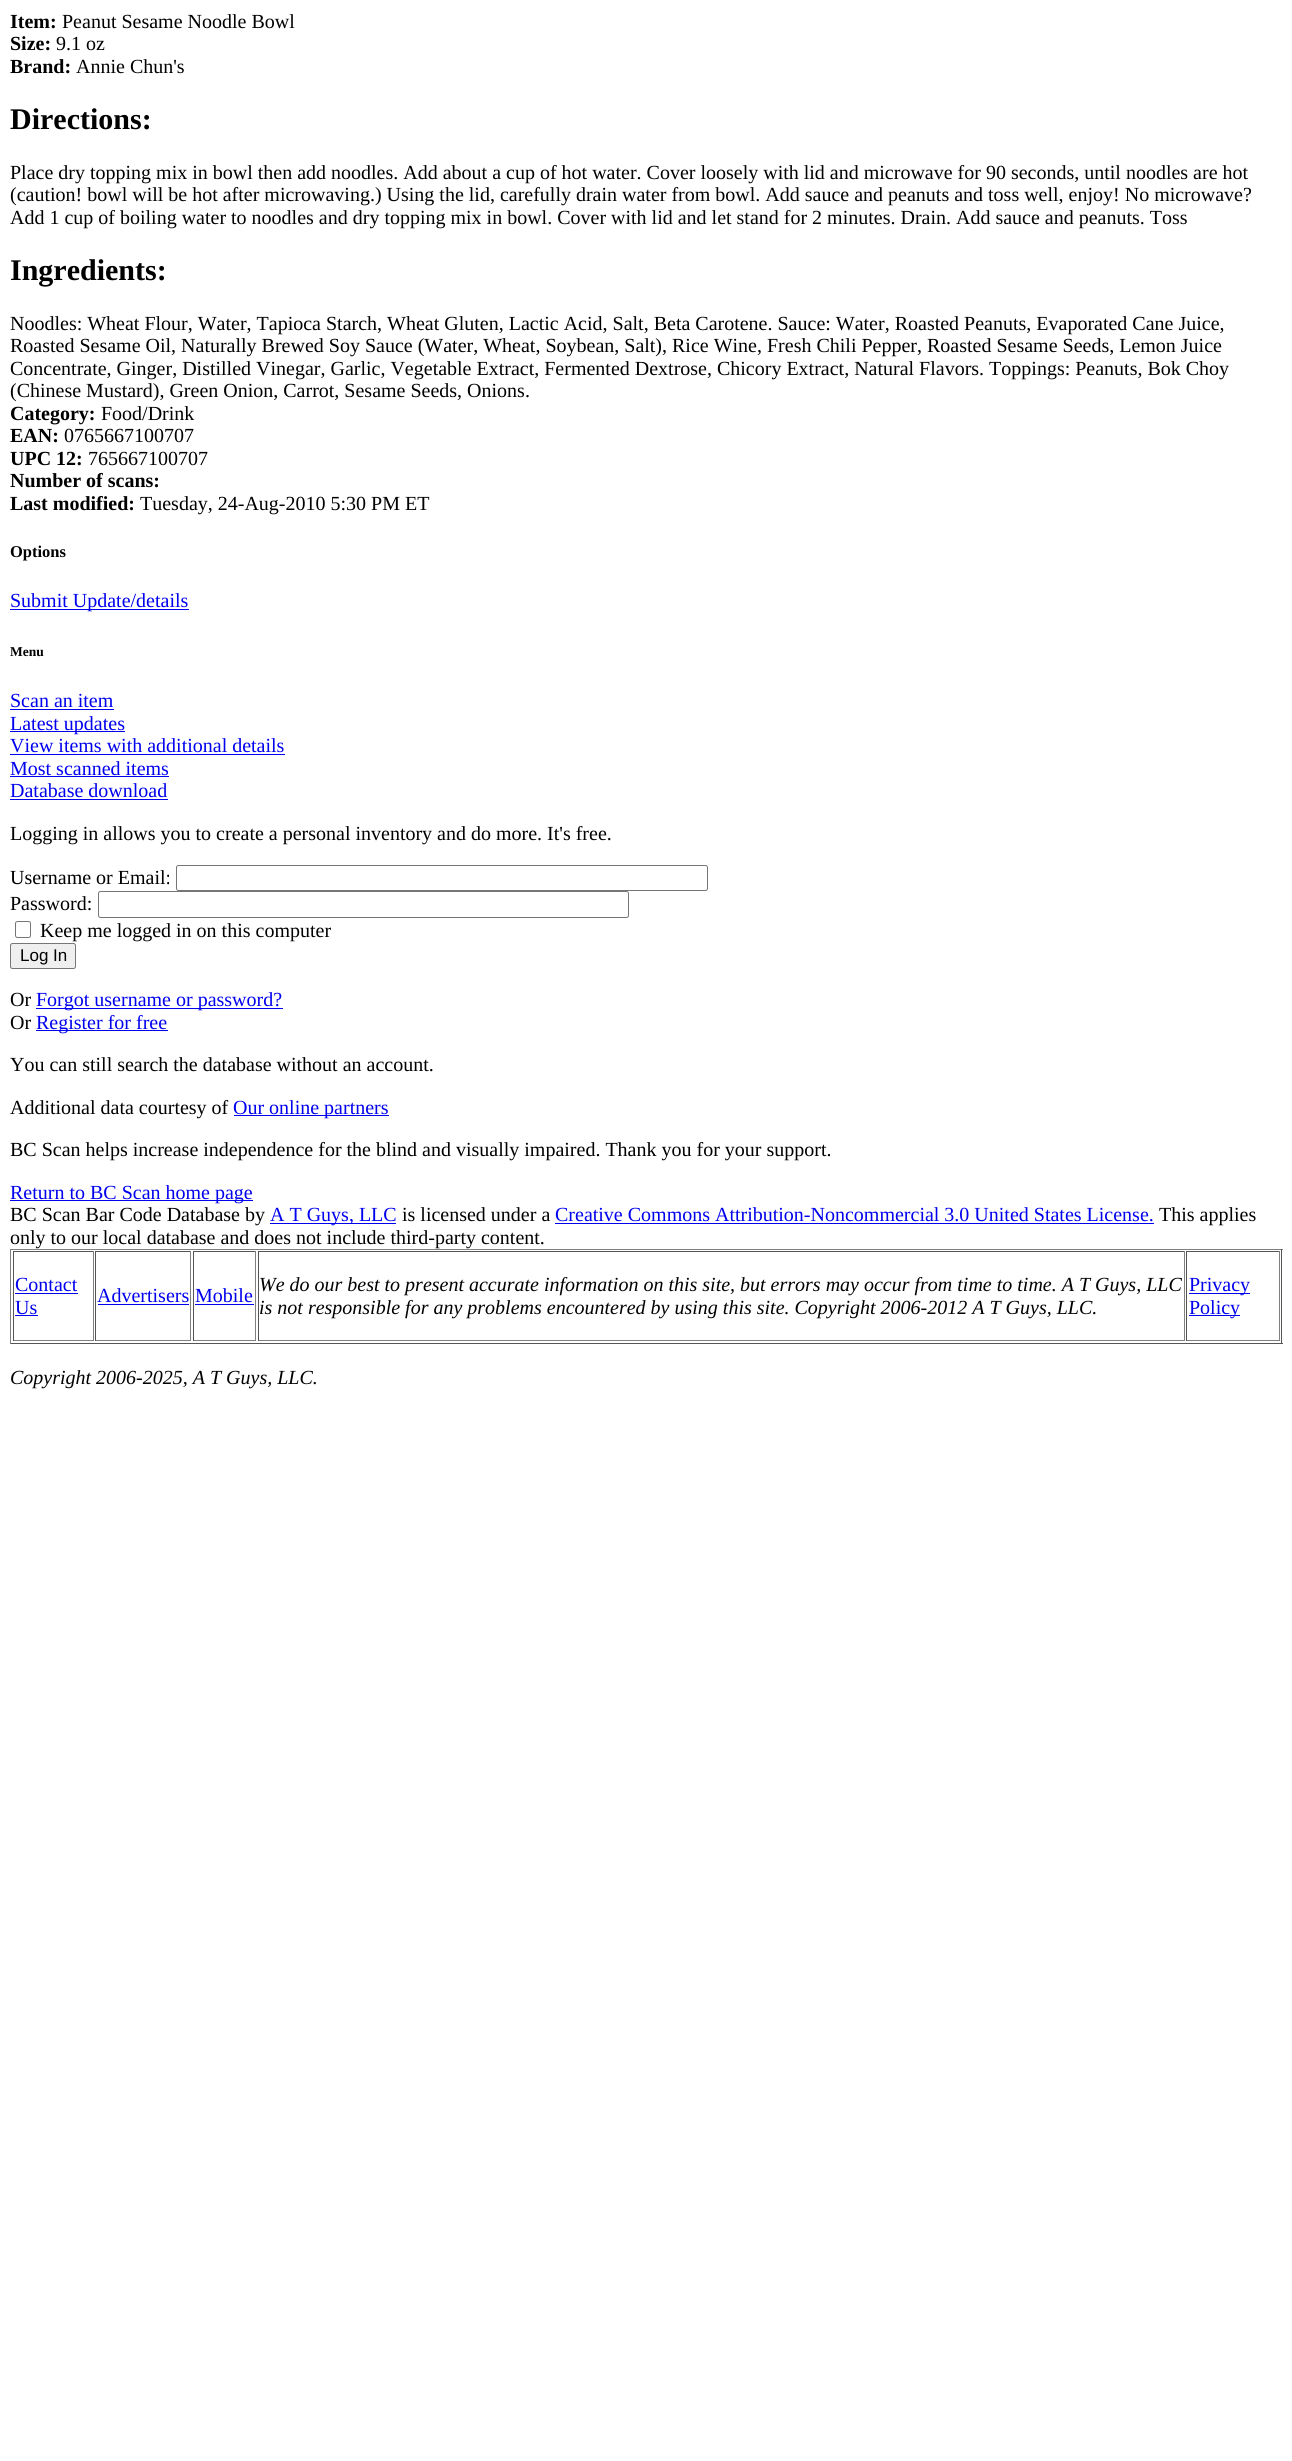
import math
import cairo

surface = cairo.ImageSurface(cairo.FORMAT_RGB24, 1292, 2461)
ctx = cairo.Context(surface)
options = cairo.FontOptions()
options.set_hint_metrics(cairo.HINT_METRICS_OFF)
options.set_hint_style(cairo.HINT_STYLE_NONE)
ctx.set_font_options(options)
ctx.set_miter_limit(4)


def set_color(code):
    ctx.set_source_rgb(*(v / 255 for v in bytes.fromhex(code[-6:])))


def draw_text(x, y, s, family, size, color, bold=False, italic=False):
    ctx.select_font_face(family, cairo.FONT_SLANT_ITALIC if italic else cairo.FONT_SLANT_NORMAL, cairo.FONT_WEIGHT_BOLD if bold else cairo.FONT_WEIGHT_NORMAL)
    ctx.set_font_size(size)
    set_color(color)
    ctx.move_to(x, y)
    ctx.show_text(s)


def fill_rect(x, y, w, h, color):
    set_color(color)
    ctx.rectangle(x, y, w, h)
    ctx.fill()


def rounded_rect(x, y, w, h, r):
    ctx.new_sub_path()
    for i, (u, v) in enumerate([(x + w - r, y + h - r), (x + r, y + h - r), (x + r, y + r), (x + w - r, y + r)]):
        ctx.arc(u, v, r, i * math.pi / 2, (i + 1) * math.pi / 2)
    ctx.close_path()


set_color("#ffffff")
ctx.paint()
draw_text(10, 28, "Item:", "Liberation Serif", 20, "#000000", bold=True)
draw_text(62, 28, "Peanut Sesame Noodle Bowl", "Liberation Serif", 20, "#000000")
draw_text(10, 50, "Size:", "Liberation Serif", 20, "#000000", bold=True)
draw_text(56, 50, "9.1 oz", "Liberation Serif", 20, "#000000")
draw_text(10, 73, "Brand:", "Liberation Serif", 20, "#000000", bold=True)
draw_text(76, 73, "Annie Chun's", "Liberation Serif", 20, "#000000")
draw_text(10, 129, "Directions:", "Liberation Serif", 30, "#000000", bold=True)
draw_text(10, 179, "Place dry topping mix in bowl then add noodles. Add about a cup of hot water. Cover loosely with lid and microwave for 90 seconds, until noodles are hot", "Liberation Serif", 20, "#000000")
draw_text(10, 201, "(caution! bowl will be hot after microwaving.) Using the lid, carefully drain water from bowl. Add sauce and peanuts and toss well, enjoy! No microwave?", "Liberation Serif", 20, "#000000")
draw_text(10, 224, "Add 1 cup of boiling water to noodles and dry topping mix in bowl. Cover with lid and let stand for 2 minutes. Drain. Add sauce and peanuts. Toss", "Liberation Serif", 20, "#000000")
draw_text(10, 280, "Ingredients:", "Liberation Serif", 30, "#000000", bold=True)
draw_text(10, 330, "Noodles: Wheat Flour, Water, Tapioca Starch, Wheat Gluten, Lactic Acid, Salt, Beta Carotene. Sauce: Water, Roasted Peanuts, Evaporated Cane Juice,", "Liberation Serif", 20, "#000000")
draw_text(10, 352, "Roasted Sesame Oil, Naturally Brewed Soy Sauce (Water, Wheat, Soybean, Salt), Rice Wine, Fresh Chili Pepper, Roasted Sesame Seeds, Lemon Juice", "Liberation Serif", 20, "#000000")
draw_text(10, 375, "Concentrate, Ginger, Distilled Vinegar, Garlic, Vegetable Extract, Fermented Dextrose, Chicory Extract, Natural Flavors. Toppings: Peanuts, Bok Choy", "Liberation Serif", 20, "#000000")
draw_text(10, 397, "(Chinese Mustard), Green Onion, Carrot, Sesame Seeds, Onions.", "Liberation Serif", 20, "#000000")
draw_text(10, 420, "Category:", "Liberation Serif", 20, "#000000", bold=True)
draw_text(101, 420, "Food/Drink", "Liberation Serif", 20, "#000000")
draw_text(10, 442, "EAN:", "Liberation Serif", 20, "#000000", bold=True)
draw_text(64, 442, "0765667100707", "Liberation Serif", 20, "#000000")
draw_text(10, 465, "UPC 12:", "Liberation Serif", 20, "#000000", bold=True)
draw_text(88, 465, "765667100707", "Liberation Serif", 20, "#000000")
draw_text(10, 487, "Number of scans:", "Liberation Serif", 20, "#000000", bold=True)
draw_text(10, 510, "Last modified:", "Liberation Serif", 20, "#000000", bold=True)
draw_text(140, 510, "Tuesday, 24-Aug-2010 5:30 PM ET", "Liberation Serif", 20, "#000000")
draw_text(10, 557, "Options", "Liberation Serif", 16.5, "#000000", bold=True)
fill_rect(10, 609, 179, 1, "#0000ee")
draw_text(10, 607, "Submit Update/details", "Liberation Serif", 20, "#0000ee")
draw_text(10, 656, "Menu", "Liberation Serif", 13.5, "#000000", bold=True)
draw_text(10, 707, "Scan an item", "Liberation Serif", 20, "#0000ee")
fill_rect(10, 709, 104, 1, "#0000ee")
fill_rect(10, 731, 115, 1, "#0000ee")
draw_text(10, 730, "Latest updates", "Liberation Serif", 20, "#0000ee")
draw_text(10, 752, "View items with additional details", "Liberation Serif", 20, "#0000ee")
fill_rect(10, 754, 275, 1, "#0000ee")
draw_text(10, 775, "Most scanned items", "Liberation Serif", 20, "#0000ee")
fill_rect(10, 776, 159, 1, "#0000ee")
draw_text(10, 797, "Database download", "Liberation Serif", 20, "#0000ee")
fill_rect(10, 799, 158, 1, "#0000ee")
draw_text(10, 840, "Logging in allows you to create a personal inventory and do more. It's free.", "Liberation Serif", 20, "#000000")
draw_text(10, 884, "Username or Email:", "Liberation Serif", 20, "#000000")
rounded_rect(176.5, 865.5, 531, 25, 2)
set_color("#767676")
ctx.set_line_width(1)
ctx.stroke()
draw_text(10, 910, "Password:", "Liberation Serif", 20, "#000000")
rounded_rect(98.5, 891.5, 530, 26, 2)
set_color("#767676")
ctx.stroke()
rounded_rect(15.5, 921.5, 15, 16, 2)
ctx.stroke()
draw_text(40, 937, "Keep me logged in on this computer", "Liberation Serif", 20, "#000000")
set_color("#efefef")
rounded_rect(10.5, 943.5, 65, 25, 2)
ctx.fill_preserve()
set_color("#767676")
ctx.stroke()
draw_text(20, 961, "Log In", "Liberation Sans", 17, "#000000")
draw_text(10, 1006, "Or", "Liberation Serif", 20, "#000000")
fill_rect(36, 1008, 247, 1, "#0000ee")
draw_text(36, 1006, "Forgot username or password?", "Liberation Serif", 20, "#0000ee")
draw_text(10, 1029, "Or", "Liberation Serif", 20, "#000000")
fill_rect(36, 1030, 132, 1, "#0000ee")
draw_text(36, 1029, "Register for free", "Liberation Serif", 20, "#0000ee")
draw_text(10, 1071, "You can still search the database without an account.", "Liberation Serif", 20, "#000000")
draw_text(10, 1114, "Additional data courtesy of", "Liberation Serif", 20, "#000000")
fill_rect(234, 1115, 155, 1, "#0000ee")
draw_text(233, 1114, "Our online partners", "Liberation Serif", 20, "#0000ee")
draw_text(10, 1156, "BC Scan helps increase independence for the blind and visually impaired. Thank you for your support.", "Liberation Serif", 20, "#000000")
fill_rect(10, 1200, 243, 1, "#0000ee")
draw_text(10, 1199, "Return to BC Scan home page", "Liberation Serif", 20, "#0000ee")
draw_text(10, 1221, "BC Scan Bar Code Database by", "Liberation Serif", 20, "#000000")
fill_rect(270, 1223, 126, 1, "#0000ee")
draw_text(270, 1221, "A T Guys, LLC", "Liberation Serif", 20, "#0000ee")
draw_text(402, 1221, "is licensed under a", "Liberation Serif", 20, "#000000")
draw_text(555, 1221, "Creative Commons Attribution-Noncommercial 3.0 United States License.", "Liberation Serif", 20, "#0000ee")
fill_rect(555, 1223, 599, 1, "#0000ee")
draw_text(1159, 1221, "This applies", "Liberation Serif", 20, "#000000")
draw_text(10, 1244, "only to our local database and does not include third-party content.", "Liberation Serif", 20, "#000000")
fill_rect(10, 1249, 1273, 1, "#808080")
fill_rect(1281, 1249, 1, 95, "#555555")
fill_rect(10, 1343, 1273, 1, "#555555")
fill_rect(10, 1249, 1, 95, "#808080")
fill_rect(13, 1251, 81, 1, "#555555")
fill_rect(93, 1251, 1, 90, "#808080")
fill_rect(13, 1340, 81, 1, "#808080")
fill_rect(13, 1251, 1, 90, "#555555")
draw_text(15, 1291, "Contact", "Liberation Serif", 20, "#0000ee")
fill_rect(15, 1293, 63, 1, "#0000ee")
draw_text(15, 1314, "Us", "Liberation Serif", 20, "#0000ee")
fill_rect(15, 1315, 23, 1, "#0000ee")
fill_rect(95, 1251, 96, 1, "#555555")
fill_rect(190, 1251, 1, 90, "#808080")
fill_rect(95, 1340, 96, 1, "#808080")
fill_rect(95, 1251, 1, 90, "#555555")
draw_text(97, 1302, "Advertisers", "Liberation Serif", 20, "#0000ee")
fill_rect(98, 1304, 91, 1, "#0000ee")
fill_rect(193, 1251, 63, 1, "#555555")
fill_rect(255, 1251, 1, 90, "#808080")
fill_rect(193, 1340, 63, 1, "#808080")
fill_rect(193, 1251, 1, 90, "#555555")
draw_text(195, 1302, "Mobile", "Liberation Serif", 20, "#0000ee")
fill_rect(195, 1304, 59, 1, "#0000ee")
fill_rect(258, 1251, 927, 1, "#555555")
fill_rect(1184, 1251, 1, 90, "#808080")
fill_rect(258, 1340, 927, 1, "#808080")
fill_rect(258, 1251, 1, 90, "#555555")
draw_text(259, 1291, "We do our best to present accurate information on this site, but errors may occur from time to time. A T Guys, LLC", "Liberation Serif", 20, "#000000", italic=True)
draw_text(259, 1314, "is not responsible for any problems encountered by using this site. Copyright 2006-2012 A T Guys, LLC.", "Liberation Serif", 20, "#000000", italic=True)
fill_rect(1186, 1251, 94, 1, "#555555")
fill_rect(1279, 1251, 1, 90, "#808080")
fill_rect(1186, 1340, 94, 1, "#808080")
fill_rect(1186, 1251, 1, 90, "#555555")
fill_rect(1189, 1293, 61, 1, "#0000ee")
draw_text(1189, 1291, "Privacy", "Liberation Serif", 20, "#0000ee")
fill_rect(1189, 1315, 51, 1, "#0000ee")
draw_text(1189, 1314, "Policy", "Liberation Serif", 20, "#0000ee")
draw_text(10, 1384, "Copyright 2006-2025, A T Guys, LLC.", "Liberation Serif", 20, "#000000", italic=True)
surface.write_to_png("output.png")
